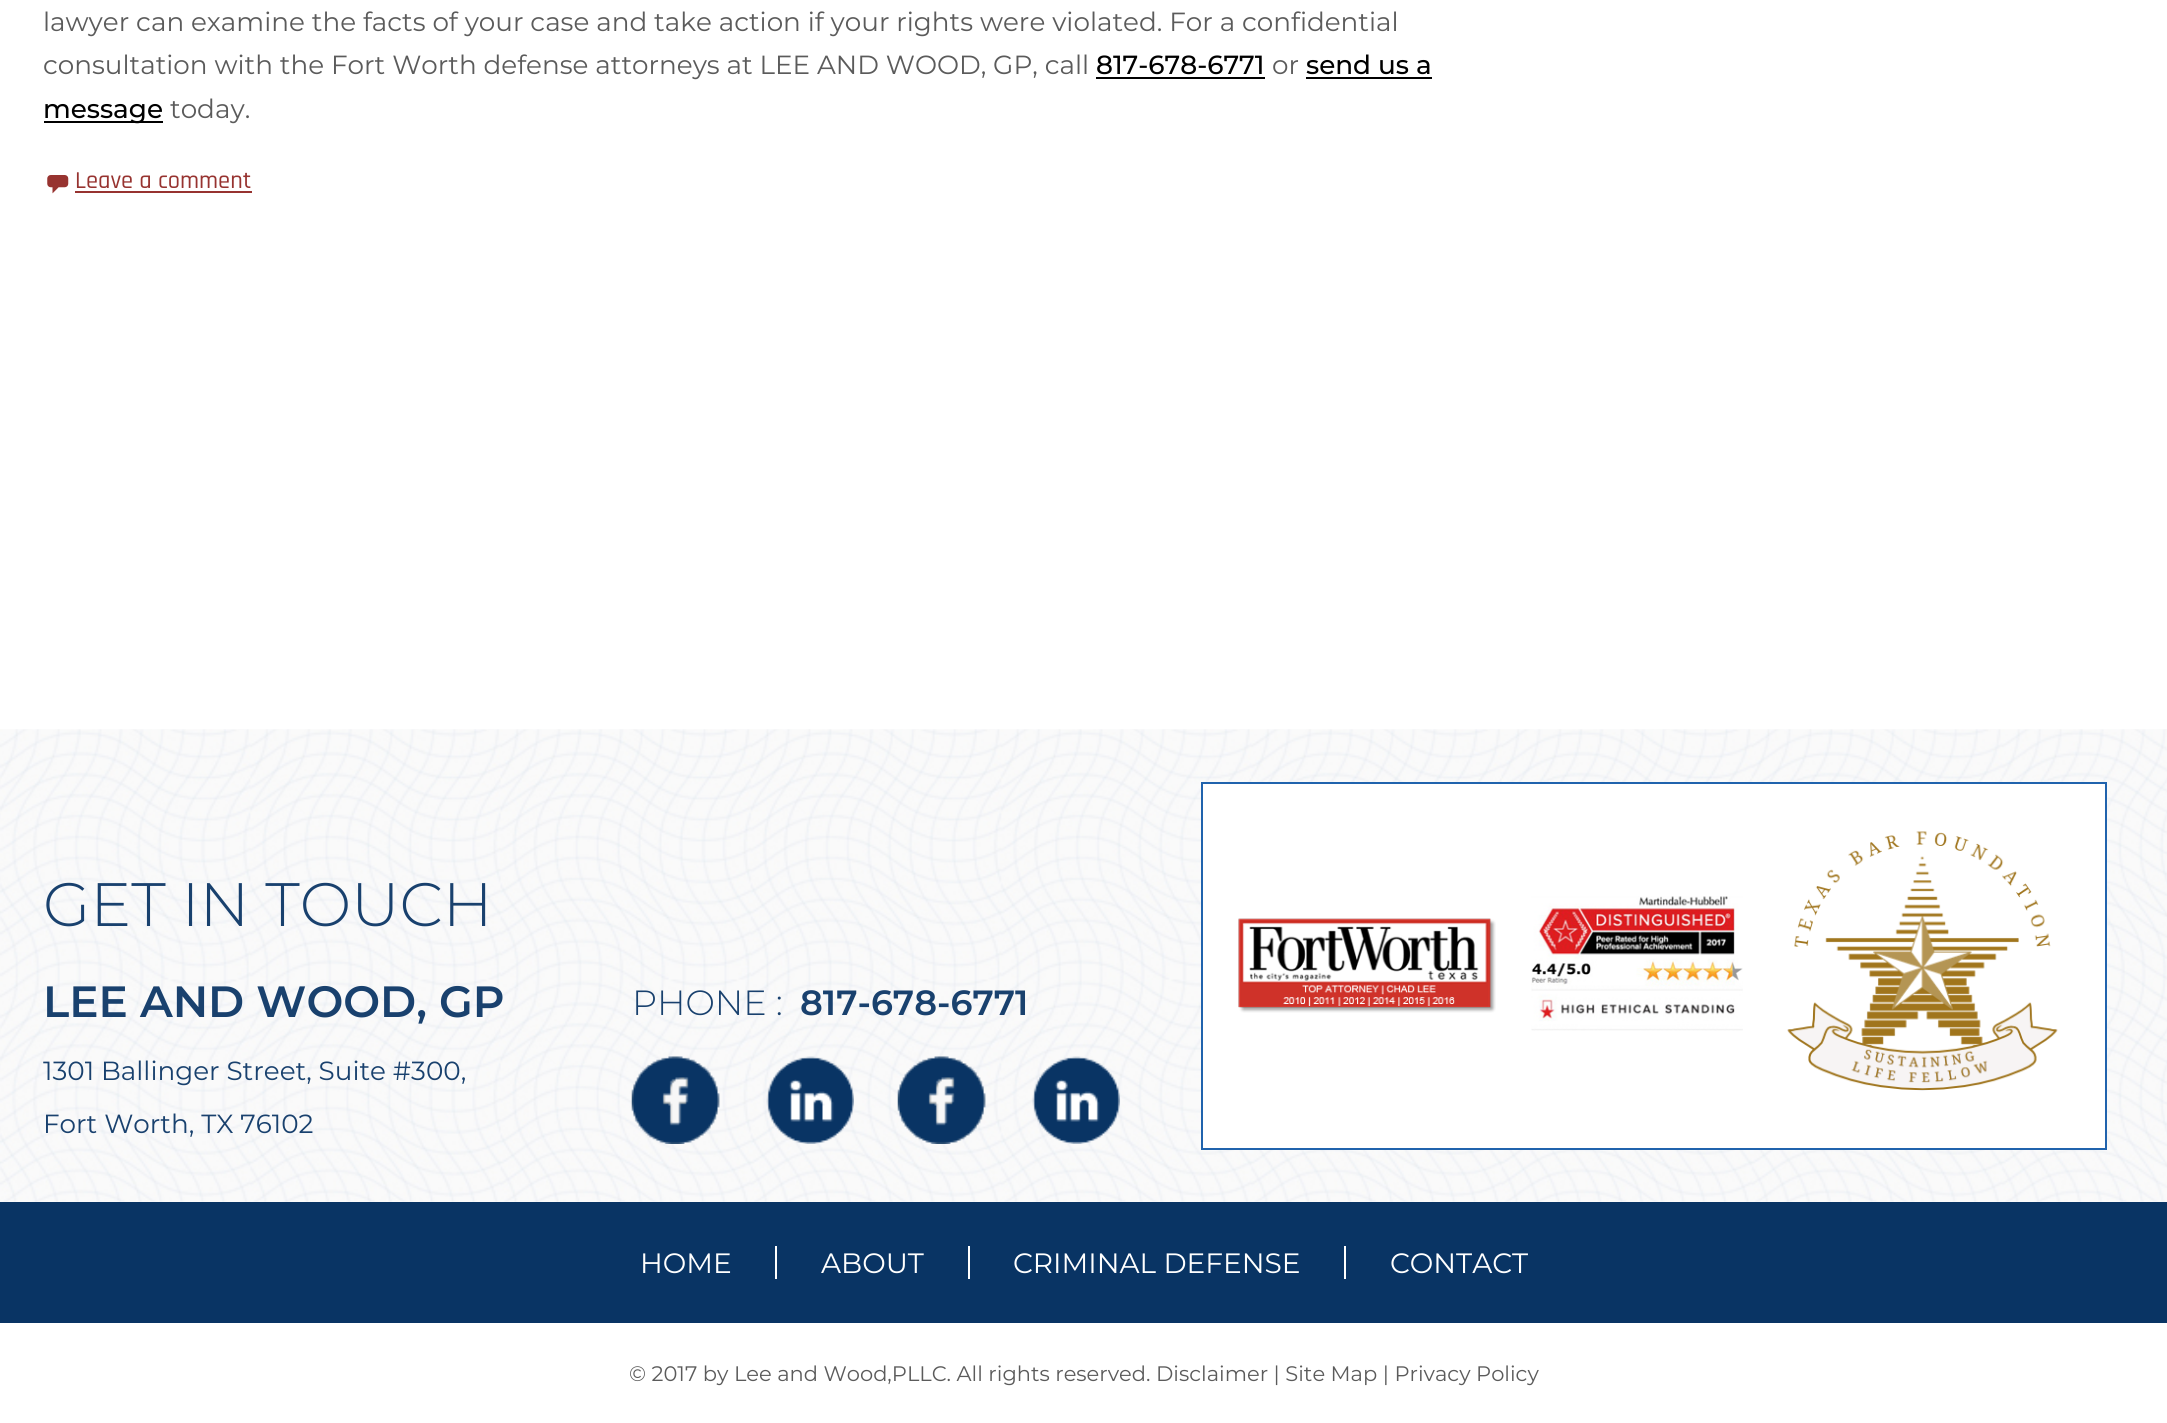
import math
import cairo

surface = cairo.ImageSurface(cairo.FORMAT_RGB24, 2167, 1423)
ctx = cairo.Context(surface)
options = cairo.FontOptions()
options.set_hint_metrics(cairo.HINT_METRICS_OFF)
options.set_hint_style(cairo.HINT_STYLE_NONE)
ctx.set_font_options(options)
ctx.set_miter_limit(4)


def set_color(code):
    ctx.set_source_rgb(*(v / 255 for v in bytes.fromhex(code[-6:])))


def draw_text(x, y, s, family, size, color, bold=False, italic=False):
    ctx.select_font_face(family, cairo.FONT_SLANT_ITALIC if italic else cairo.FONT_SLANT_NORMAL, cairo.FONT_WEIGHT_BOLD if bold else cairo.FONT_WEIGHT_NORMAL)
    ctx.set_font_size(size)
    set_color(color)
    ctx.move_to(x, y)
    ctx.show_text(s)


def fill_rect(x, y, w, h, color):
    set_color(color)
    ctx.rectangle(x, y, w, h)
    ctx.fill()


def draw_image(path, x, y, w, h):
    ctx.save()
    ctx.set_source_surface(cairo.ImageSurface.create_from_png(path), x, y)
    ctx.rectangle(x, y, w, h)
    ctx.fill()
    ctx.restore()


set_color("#ffffff")
ctx.paint()
draw_text(43, 31, "lawyer can examine the facts of your case and take action if your rights were violated. For a confidential", "Montserrat", 26.25, "#5b5b5b")
draw_text(43, 74, "consultation with the Fort Worth defense attorneys at LEE AND WOOD, GP, call", "Montserrat", 26.25, "#5b5b5b")
draw_text(1096, 74, "817-678-6771", "Montserrat Medium", 26.25, "#000000")
fill_rect(1096, 77, 169, 2, "#000000")
draw_text(1272, 74, "or", "Montserrat", 26.25, "#5b5b5b")
draw_text(1306, 74, "send us a", "Montserrat Medium", 26.25, "#000000")
fill_rect(1306, 77, 126, 2, "#000000")
fill_rect(44, 121, 119, 2, "#000000")
draw_text(43, 118, "message", "Montserrat Medium", 26.25, "#000000")
draw_text(170, 118, "today.", "Montserrat", 26.25, "#5b5b5b")
draw_image("assets/img1.png", 47, 175, 22, 19)
draw_text(75, 188, "Leave a comment", "Rajdhani Medium", 24.5, "#973330")
fill_rect(75, 191, 177, 2, "#973330")
draw_image("assets/img2.png", 0, 729, 2167, 473)
draw_text(43, 926, "GET IN TOUCH", "Montserrat Light", 61.25, "#19416e")
draw_text(43, 1017, "LEE AND WOOD, GP", "Montserrat SemiBold", 43.75, "#19416e")
draw_text(43, 1080, "1301 Ballinger Street, Suite #300,", "Montserrat", 26.25, "#19416e")
draw_text(43, 1133, "Fort Worth, TX 76102", "Montserrat", 26.25, "#19416e")
draw_text(632, 1015, "PHONE :", "Montserrat Light", 35, "#19416e")
draw_text(800, 1015, "817-678-6771", "Montserrat SemiBold", 35, "#19416e")
draw_image("assets/img3.png", 631, 1056, 89, 88)
draw_image("assets/img4.png", 766, 1056, 88, 88)
draw_image("assets/img5.png", 897, 1056, 89, 88)
draw_image("assets/img6.png", 1032, 1056, 88, 88)
set_color("#ffffff")
ctx.rectangle(1202, 783, 904, 366)
ctx.fill_preserve()
set_color("#2063ad")
ctx.stroke()
draw_image("assets/img7.png", 1238, 918, 258, 95)
draw_image("assets/img8.png", 1531, 896, 212, 135)
draw_image("assets/img9.png", 1787, 831, 271, 260)
fill_rect(0, 1202, 2167, 121, "#093464")
draw_text(640, 1273, "HOME", "Montserrat", 28, "#ffffff")
fill_rect(775, 1246, 2, 33, "#ffffff")
draw_text(821, 1273, "ABOUT", "Montserrat", 28, "#ffffff")
fill_rect(968, 1246, 2, 33, "#ffffff")
draw_text(1013, 1273, "CRIMINAL DEFENSE", "Montserrat", 28, "#ffffff")
fill_rect(1344, 1246, 2, 33, "#ffffff")
draw_text(1390, 1273, "CONTACT", "Montserrat", 28, "#ffffff")
draw_text(629, 1381, "© 2017 by Lee and Wood,PLLC. All rights reserved. Disclaimer | Site Map | Privacy Policy", "Montserrat", 21, "#5b5b5b")
surface.write_to_png("output.png")
